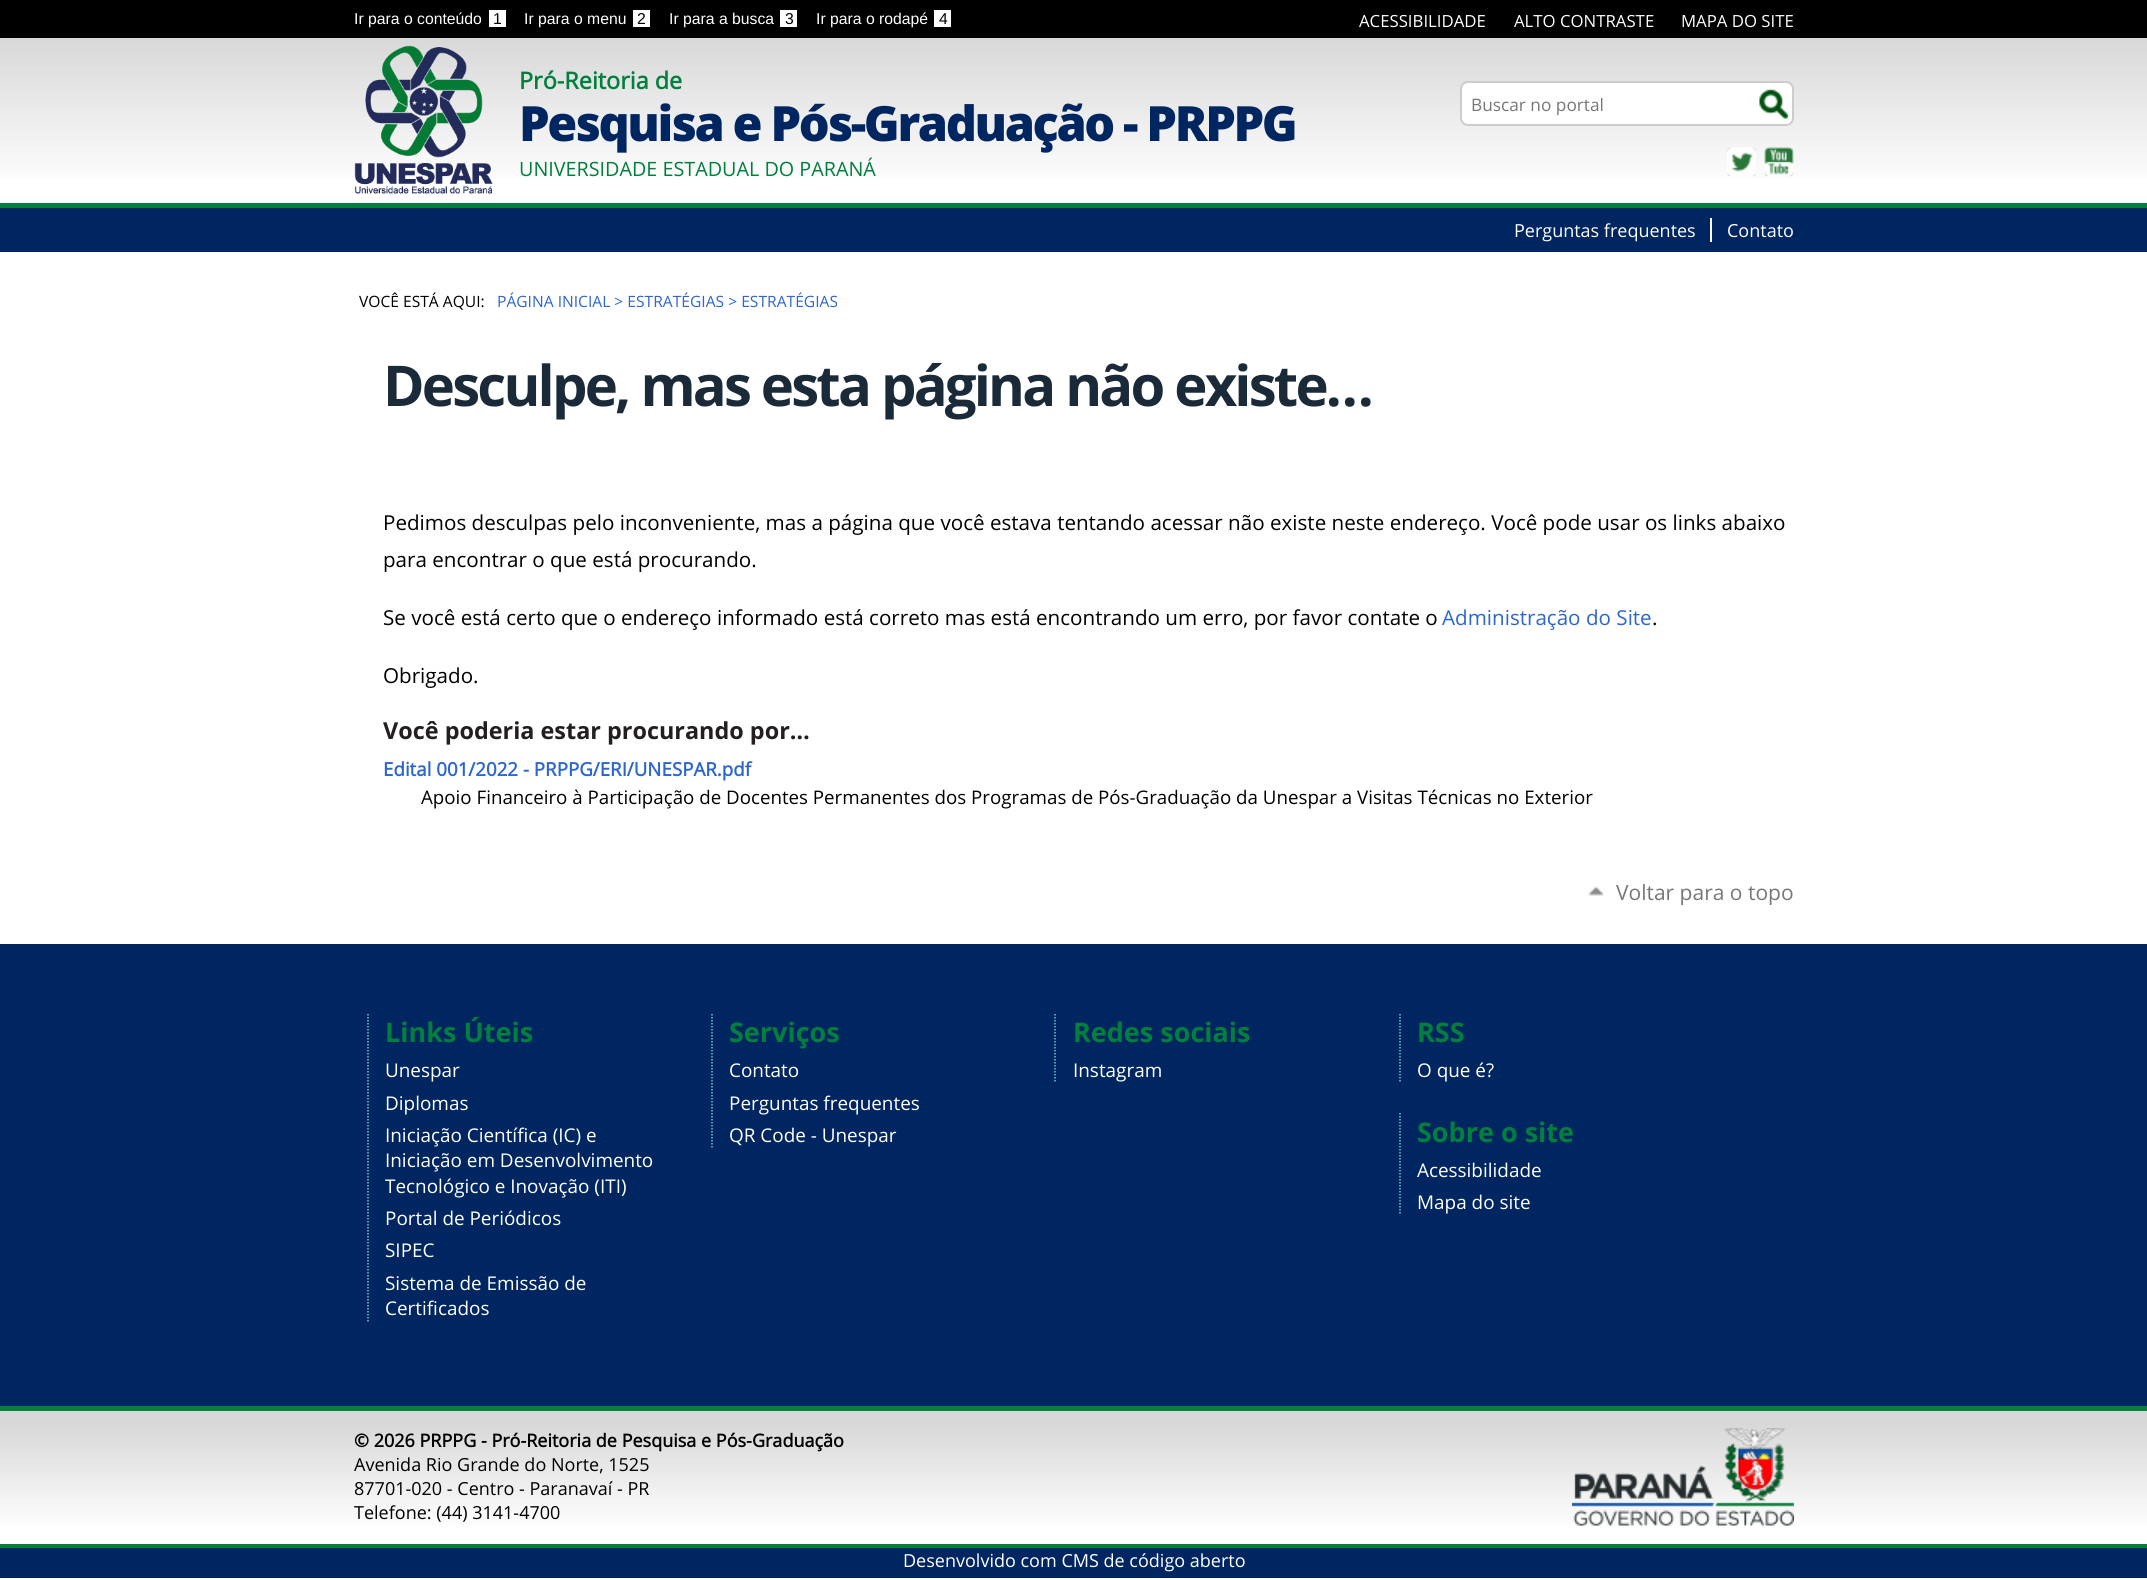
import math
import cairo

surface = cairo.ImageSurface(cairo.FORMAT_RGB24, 2147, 1580)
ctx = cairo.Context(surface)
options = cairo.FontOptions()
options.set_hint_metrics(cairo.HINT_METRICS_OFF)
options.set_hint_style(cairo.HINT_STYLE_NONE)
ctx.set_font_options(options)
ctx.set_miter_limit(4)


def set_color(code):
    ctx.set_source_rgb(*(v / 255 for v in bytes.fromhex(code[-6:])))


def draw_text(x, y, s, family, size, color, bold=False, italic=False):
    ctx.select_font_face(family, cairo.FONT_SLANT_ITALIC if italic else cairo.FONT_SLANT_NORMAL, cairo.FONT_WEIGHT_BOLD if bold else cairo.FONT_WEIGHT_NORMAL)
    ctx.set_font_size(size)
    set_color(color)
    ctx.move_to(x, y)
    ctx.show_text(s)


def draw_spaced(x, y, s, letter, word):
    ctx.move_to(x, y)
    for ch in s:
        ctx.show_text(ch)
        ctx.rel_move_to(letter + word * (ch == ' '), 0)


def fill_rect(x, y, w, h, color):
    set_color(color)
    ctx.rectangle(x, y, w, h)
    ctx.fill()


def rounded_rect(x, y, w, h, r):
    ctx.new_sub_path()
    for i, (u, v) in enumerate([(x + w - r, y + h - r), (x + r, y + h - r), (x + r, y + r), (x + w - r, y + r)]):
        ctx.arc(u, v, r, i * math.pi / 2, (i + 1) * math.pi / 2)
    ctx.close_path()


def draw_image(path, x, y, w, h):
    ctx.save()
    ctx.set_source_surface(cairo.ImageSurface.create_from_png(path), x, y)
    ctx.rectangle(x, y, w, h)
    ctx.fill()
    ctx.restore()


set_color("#ffffff")
ctx.paint()
gradient = cairo.LinearGradient(1074, 0, 1074, 252)
gradient.add_color_stop_rgba(0.15, 0, 0, 0, 1)
gradient.add_color_stop_rgba(0.15, 0.847, 0.847, 0.847, 1)
gradient.add_color_stop_rgba(0.75, 1, 1, 1, 1)
ctx.set_source(gradient)
ctx.rectangle(0, 0, 2147, 179)
ctx.fill()
draw_text(354, 24, "Ir para o conteúdo", "Liberation Sans", 15.75, "#ffffff")
fill_rect(489, 10, 17, 17, "#ffffff")
draw_text(493, 24, "1", "Liberation Sans", 15.75, "#000000")
draw_text(524, 24, "Ir para o menu", "Liberation Sans", 15.75, "#ffffff")
fill_rect(633, 10, 17, 17, "#ffffff")
draw_text(637, 24, "2", "Liberation Sans", 15.75, "#000000")
draw_text(669, 24, "Ir para a busca", "Liberation Sans", 15.75, "#ffffff")
fill_rect(780, 10, 17, 17, "#ffffff")
draw_text(785, 24, "3", "Liberation Sans", 15.75, "#000000")
draw_text(816, 24, "Ir para o rodapé", "Liberation Sans", 15.75, "#ffffff")
fill_rect(934, 10, 17, 17, "#ffffff")
draw_text(939, 24, "4", "Liberation Sans", 15.75, "#000000")
draw_text(1359, 27, "ACESSIBILIDADE", "Open Sans", 16.75, "#ffffff")
draw_text(1514, 27, "ALTO CONTRASTE", "Open Sans", 16.75, "#ffffff")
draw_text(1681, 27, "MAPA DO SITE", "Open Sans", 16.75, "#ffffff")
draw_image("assets/img1.png", 354, 45, 139, 149)
draw_text(519, 89, "Pró-Reitoria de", "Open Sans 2", 23.4, "#007f3d", bold=True)
ctx.select_font_face("Open Sans ExtraBold")
ctx.set_font_size(48.6)
set_color("#002661")
draw_spaced(519, 141, "Pesquisa e Pós-Graduação - PRPPG", -2.4, 0)
draw_text(519, 176, "UNIVERSIDADE ESTADUAL DO PARANÁ", "Open Sans", 19.75, "#007f3d")
set_color("#ffffff")
rounded_rect(1461, 82, 332, 43, 7)
ctx.fill_preserve()
set_color("#cccccc")
ctx.stroke()
draw_text(1471, 111, "Buscar no portal", "Open Sans", 17.25, "#777777")
draw_image("assets/img2.png", 1759, 89, 30, 30)
draw_image("assets/img3.png", 1727, 147, 29, 30)
draw_image("assets/img4.png", 1764, 147, 30, 30)
fill_rect(0, 208, 2147, 44, "#002661")
fill_rect(0, 203, 2147, 5, "#007f3d")
draw_text(1514, 237, "Perguntas frequentes", "Open Sans", 18, "#ffffff")
fill_rect(1710, 218, 2, 24, "#ffffff")
draw_text(1727, 237, "Contato", "Open Sans", 18, "#ffffff")
draw_text(359, 307, "VOCÊ ESTÁ AQUI:", "Open Sans", 15.6, "#000000")
draw_text(497, 307, "PÁGINA INICIAL > ESTRATÉGIAS > ESTRATÉGIAS", "Open Sans", 15.6, "#2c66ce")
ctx.select_font_face("Open Sans", cairo.FONT_SLANT_NORMAL, cairo.FONT_WEIGHT_BOLD)
ctx.set_font_size(56.2)
set_color("#1a2a39")
draw_spaced(383, 406, "Desculpe, mas esta página não existe…", -2.8, 0)
draw_text(383, 530, "Pedimos desculpas pelo inconveniente, mas a página que você estava tentando acessar não existe neste endereço. Você pode usar os links abaixo", "Open Sans", 20.6, "#000000")
draw_text(383, 567, "para encontrar o que está procurando.", "Open Sans", 20.6, "#000000")
draw_text(383, 625, "Se você está certo que o endereço informado está correto mas está encontrando um erro, por favor contate o", "Open Sans", 20.6, "#000000")
draw_text(1442, 625, "Administração do Site", "Open Sans", 20.6, "#2c66ce")
draw_text(1652, 625, ".", "Open Sans", 20.6, "#000000")
draw_text(383, 683, "Obrigado.", "Open Sans", 20.6, "#000000")
draw_text(383, 739, "Você poderia estar procurando por…", "Open Sans", 23.4, "#231f20", bold=True)
draw_text(383, 776, "Edital 001/2022 - PRPPG/ERI/UNESPAR.pdf", "Open Sans 2", 18.72, "#2c66ce", bold=True)
draw_text(421, 804, "Apoio Financeiro à Participação de Docentes Permanentes dos Programas de Pós-Graduação da Unespar a Visitas Técnicas no Exterior", "Open Sans", 18.72, "#000000")
draw_image("assets/img5.png", 1588, 886, 16, 10)
draw_text(1616, 900, "Voltar para o topo", "Open Sans", 21, "#777777")
fill_rect(0, 944, 2147, 462, "#002661")
ctx.new_path()
ctx.move_to(368, 1014)
ctx.line_to(368, 1321.5)
set_color("#66cccc")
ctx.set_line_width(1.5)
ctx.set_dash([1.5, 1.5])
ctx.stroke()
draw_text(385, 1042, "Links Úteis", "Open Sans", 27, "#007f3d", bold=True)
draw_text(385, 1077, "Unespar", "Open Sans", 18.9, "#ffffff")
draw_text(385, 1110, "Diplomas", "Open Sans", 18.9, "#ffffff")
draw_text(385, 1142, "Iniciação Científica (IC) e", "Open Sans", 18.9, "#ffffff")
draw_text(385, 1167, "Iniciação em Desenvolvimento", "Open Sans", 18.9, "#ffffff")
draw_text(385, 1193, "Tecnológico e Inovação (ITI)", "Open Sans", 18.9, "#ffffff")
draw_text(385, 1225, "Portal de Periódicos", "Open Sans", 18.9, "#ffffff")
draw_text(385, 1257, "SIPEC", "Open Sans", 18.9, "#ffffff")
draw_text(385, 1290, "Sistema de Emissão de", "Open Sans", 18.9, "#ffffff")
draw_text(385, 1315, "Certificados", "Open Sans", 18.9, "#ffffff")
ctx.new_path()
ctx.move_to(712, 1014)
ctx.line_to(712, 1147.5)
set_color("#66cccc")
ctx.stroke()
draw_text(729, 1042, "Serviços", "Open Sans", 27, "#007f3d", bold=True)
draw_text(729, 1077, "Contato", "Open Sans", 18.9, "#ffffff")
draw_text(729, 1110, "Perguntas frequentes", "Open Sans", 18.9, "#ffffff")
draw_text(729, 1142, "QR Code - Unespar", "Open Sans", 18.9, "#ffffff")
ctx.new_path()
ctx.move_to(1055, 1014)
ctx.line_to(1055, 1083)
set_color("#66cccc")
ctx.stroke()
draw_text(1073, 1042, "Redes sociais", "Open Sans", 27, "#007f3d", bold=True)
draw_text(1073, 1077, "Instagram", "Open Sans", 18.9, "#ffffff")
ctx.new_path()
ctx.move_to(1400, 1014)
ctx.line_to(1400, 1083)
set_color("#66cccc")
ctx.stroke()
draw_text(1417, 1042, "RSS", "Open Sans", 27, "#007f3d", bold=True)
draw_text(1417, 1077, "O que é?", "Open Sans", 18.9, "#ffffff")
ctx.new_path()
ctx.move_to(1400, 1113)
ctx.line_to(1400, 1215)
set_color("#66cccc")
ctx.stroke()
draw_text(1417, 1142, "Sobre o site", "Open Sans", 27, "#007f3d", bold=True)
draw_text(1417, 1177, "Acessibilidade", "Open Sans", 18.9, "#ffffff")
draw_text(1417, 1209, "Mapa do site", "Open Sans", 18.9, "#ffffff")
gradient = cairo.LinearGradient(1074, 1410, 1074, 1544)
gradient.add_color_stop_rgba(0.1, 0.847, 0.847, 0.847, 1)
gradient.add_color_stop_rgba(0.9, 1, 1, 1, 1)
ctx.set_source(gradient)
ctx.rectangle(0, 1411, 2147, 113)
ctx.fill()
fill_rect(0, 1406, 2147, 5, "#007f3d")
fill_rect(0, 1544, 2147, 4, "#007f3d")
draw_text(354, 1447, "© 2026 PRPPG - Pró-Reitoria de Pesquisa e Pós-Graduação", "Open Sans 2", 18, "#000000", bold=True)
draw_text(354, 1471, "Avenida Rio Grande do Norte, 1525", "Open Sans", 18, "#000000")
draw_text(354, 1495, "87701-020 - Centro - Paranavaí - PR", "Open Sans", 18, "#000000")
draw_text(354, 1519, "Telefone: (44) 3141-4700", "Open Sans", 18, "#000000")
draw_image("assets/img6.png", 1572, 1428, 222, 98)
fill_rect(0, 1548, 2147, 30, "#002661")
draw_text(903, 1567, "Desenvolvido com CMS de código aberto", "Open Sans", 18, "#ffffff")
surface.write_to_png("output.png")
